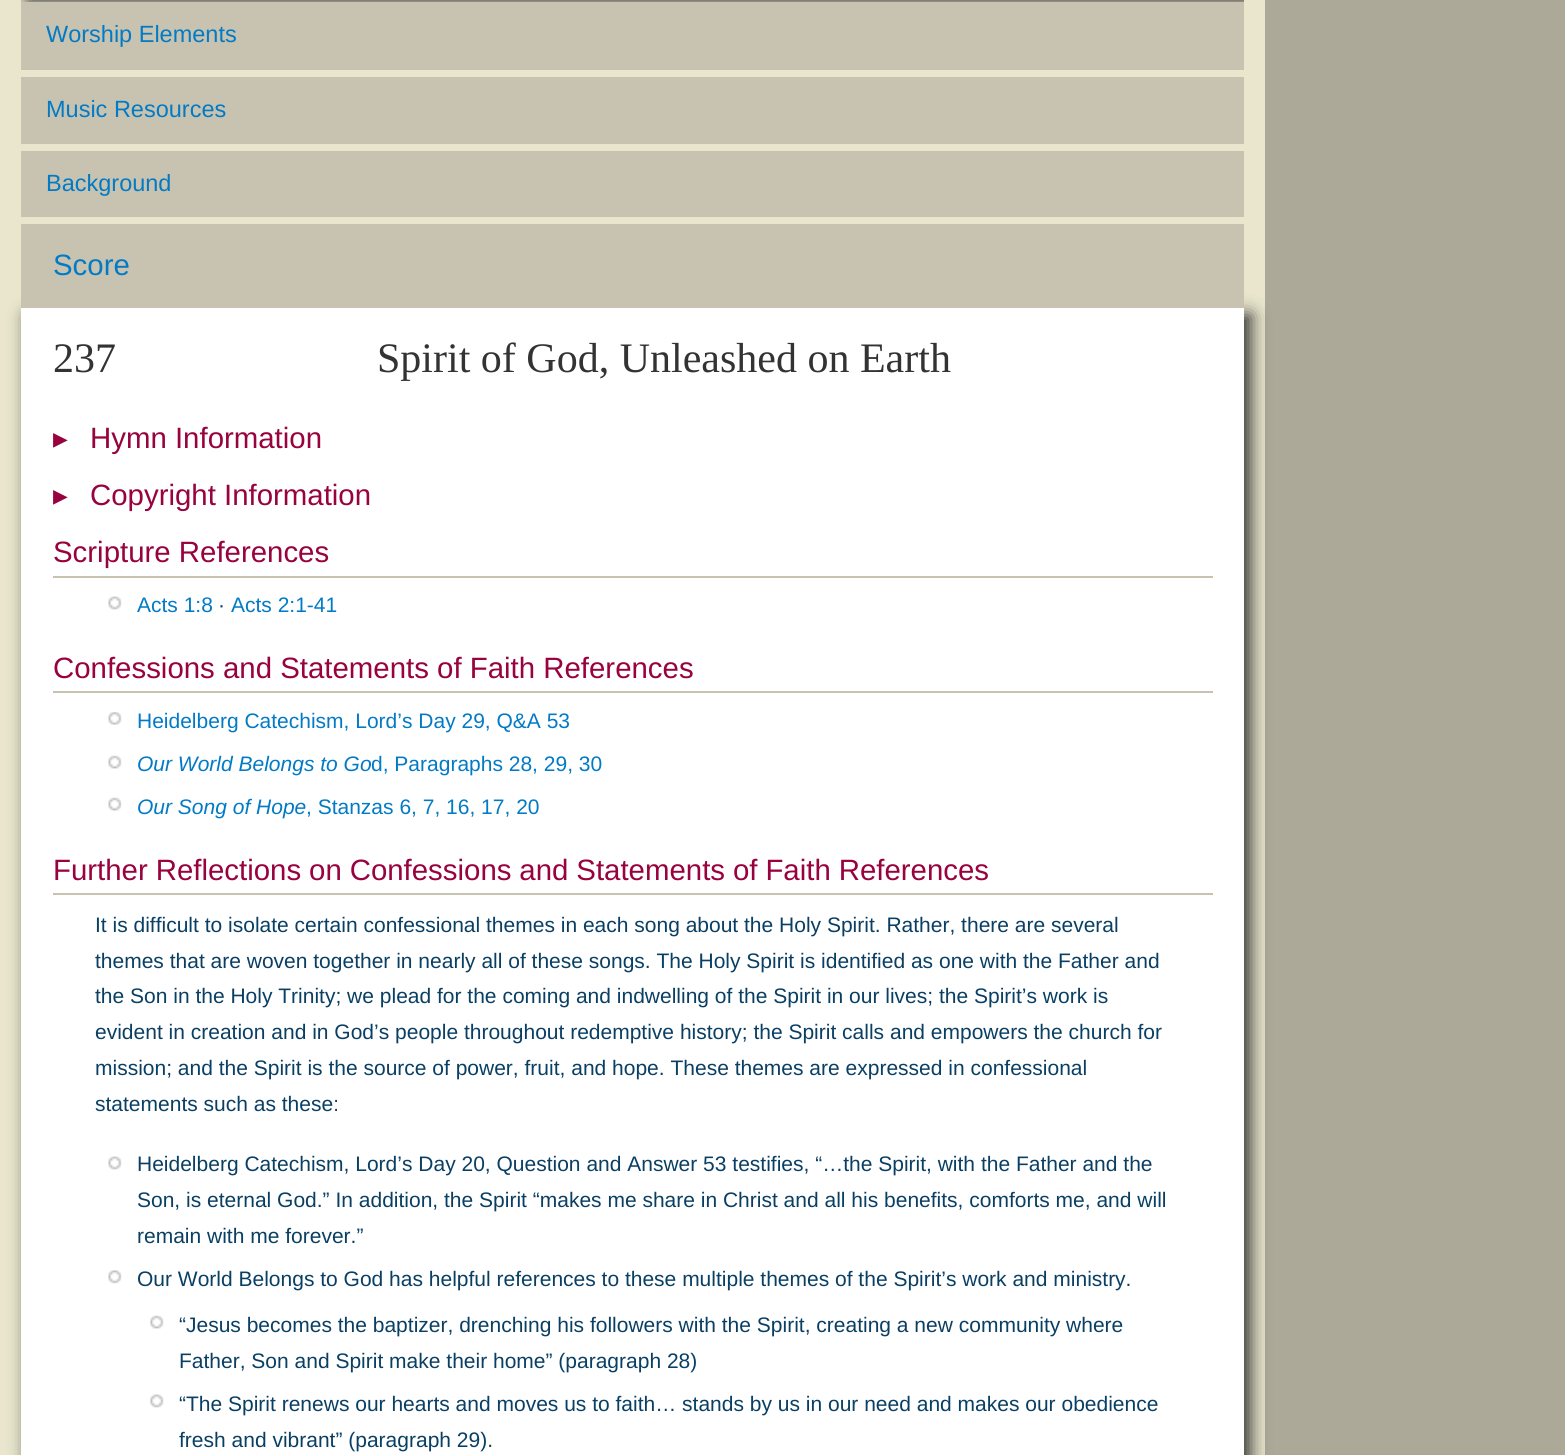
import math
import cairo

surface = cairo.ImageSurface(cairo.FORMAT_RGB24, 1565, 1455)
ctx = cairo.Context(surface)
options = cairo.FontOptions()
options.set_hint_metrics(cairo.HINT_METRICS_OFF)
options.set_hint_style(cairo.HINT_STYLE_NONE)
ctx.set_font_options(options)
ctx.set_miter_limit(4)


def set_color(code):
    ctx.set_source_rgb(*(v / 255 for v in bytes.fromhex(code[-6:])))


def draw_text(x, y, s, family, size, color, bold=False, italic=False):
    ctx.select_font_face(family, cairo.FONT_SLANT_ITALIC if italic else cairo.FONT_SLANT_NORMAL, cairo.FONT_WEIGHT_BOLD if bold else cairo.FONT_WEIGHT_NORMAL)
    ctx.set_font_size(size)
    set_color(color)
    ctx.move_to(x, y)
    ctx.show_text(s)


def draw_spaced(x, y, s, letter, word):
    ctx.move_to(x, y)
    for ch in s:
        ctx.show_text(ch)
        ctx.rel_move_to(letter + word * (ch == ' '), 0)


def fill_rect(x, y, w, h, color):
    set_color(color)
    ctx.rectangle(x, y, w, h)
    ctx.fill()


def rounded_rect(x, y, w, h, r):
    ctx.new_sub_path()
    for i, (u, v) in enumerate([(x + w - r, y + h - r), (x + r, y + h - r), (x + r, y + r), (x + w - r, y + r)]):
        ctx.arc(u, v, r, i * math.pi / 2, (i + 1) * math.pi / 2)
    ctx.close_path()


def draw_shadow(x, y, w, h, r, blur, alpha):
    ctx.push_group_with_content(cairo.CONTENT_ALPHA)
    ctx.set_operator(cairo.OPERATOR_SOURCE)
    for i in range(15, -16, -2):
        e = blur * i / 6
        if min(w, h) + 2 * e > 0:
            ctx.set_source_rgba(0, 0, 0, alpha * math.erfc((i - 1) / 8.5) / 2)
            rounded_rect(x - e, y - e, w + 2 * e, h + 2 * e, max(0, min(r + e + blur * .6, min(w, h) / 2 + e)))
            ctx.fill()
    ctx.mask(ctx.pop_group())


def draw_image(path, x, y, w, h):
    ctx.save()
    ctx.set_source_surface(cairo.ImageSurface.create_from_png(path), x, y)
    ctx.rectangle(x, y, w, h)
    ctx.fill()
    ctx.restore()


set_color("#ada999")
ctx.paint()
fill_rect(0, 0, 1265, 1455, "#e9e6cd")
ctx.save()
ctx.rectangle(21, 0, 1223, 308)
ctx.clip()
set_color("#333333")
draw_shadow(28, -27, 1223, 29, 0, 9, 1)
ctx.restore()
fill_rect(21, 2, 1223, 68, "#c8c3b0")
draw_text(46, 42, "Worship Elements", "Liberation Sans", 23.5, "#027ac6")
fill_rect(21, 77, 1223, 67, "#c8c3b0")
draw_text(46, 117, "Music Resources", "Liberation Sans", 23.5, "#027ac6")
fill_rect(21, 151, 1223, 66, "#c8c3b0")
draw_text(46, 191, "Background", "Liberation Sans", 23.5, "#027ac6")
set_color("#333333")
draw_shadow(28, 315, 1223, 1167, 0, 9, 1)
fill_rect(21, 224, 1223, 84, "#c8c3b0")
draw_text(53, 275, "Score", "Liberation Sans", 29.4, "#027ac6")
fill_rect(21, 308, 1223, 1147, "#ffffff")
draw_text(53, 372, "237", "Liberation Serif", 42, "#333333")
draw_text(377, 372, "Spirit of God, Unleashed on Earth", "Liberation Serif", 42, "#333333")
draw_text(53, 448, "▸", "DejaVu Sans", 29.4, "#98023e")
draw_text(90, 448, "Hymn Information", "Liberation Sans", 29.4, "#98023e")
draw_text(53, 505, "▸", "DejaVu Sans", 29.4, "#98023e")
draw_text(90, 505, "Copyright Information", "Liberation Sans", 29.4, "#98023e")
fill_rect(53, 576, 1160, 2, "#c8c3b0")
draw_text(53, 562, "Scripture References", "Liberation Sans", 29.4, "#98023e")
draw_image("assets/img1.png", 108, 596, 14, 14)
draw_text(137, 612, "Acts 1:8", "Liberation Sans", 21, "#027ac6")
draw_text(218, 612, "·", "Liberation Sans", 21, "#0a3f64")
draw_text(231, 612, "Acts 2:1-41", "Liberation Sans", 21, "#027ac6")
fill_rect(53, 691, 1160, 2, "#c8c3b0")
draw_text(53, 678, "Confessions and Statements of Faith References", "Liberation Sans", 29.4, "#98023e")
draw_image("assets/img2.png", 108, 712, 14, 13)
draw_text(137, 728, "Heidelberg Catechism, Lord’s Day 29, Q&A 53", "Liberation Sans", 21, "#027ac6")
draw_image("assets/img3.png", 108, 755, 14, 14)
draw_text(137, 771, "Our World Belongs to Go", "Liberation Sans", 21, "#027ac6", italic=True)
draw_text(371, 771, "d, Paragraphs 28, 29, 30", "Liberation Sans", 21, "#027ac6")
draw_image("assets/img3.png", 108, 797, 14, 14)
draw_text(137, 814, "Our Song of Hope", "Liberation Sans", 21, "#027ac6", italic=True)
draw_text(306, 814, ", Stanzas 6, 7, 16, 17, 20", "Liberation Sans", 21, "#027ac6")
fill_rect(53, 893, 1160, 2, "#c8c3b0")
ctx.set_font_size(29.4)
set_color("#98023e")
draw_spaced(53, 880, "Further Reflections on Confessions and Statements of Faith References", 0, -0.25)
draw_text(95, 932, "It is difficult to isolate certain confessional themes in each song about the Holy Spirit. Rather, there are several", "Liberation Sans", 21, "#0a3f64")
draw_text(95, 968, "themes that are woven together in nearly all of these songs. The Holy Spirit is identified as one with the Father and", "Liberation Sans", 21, "#0a3f64")
draw_text(95, 1003, "the Son in the Holy Trinity; we plead for the coming and indwelling of the Spirit in our lives; the Spirit’s work is", "Liberation Sans", 21, "#0a3f64")
draw_text(95, 1039, "evident in creation and in God’s people throughout redemptive history; the Spirit calls and empowers the church for", "Liberation Sans", 21, "#0a3f64")
draw_text(95, 1075, "mission; and the Spirit is the source of power, fruit, and hope. These themes are expressed in confessional", "Liberation Sans", 21, "#0a3f64")
draw_text(95, 1111, "statements such as these:", "Liberation Sans", 21, "#0a3f64")
draw_image("assets/img1.png", 108, 1156, 14, 14)
draw_text(137, 1171, "Heidelberg Catechism, Lord’s Day 20, Question and Answer 53 testifies, “…the Spirit, with the Father and the", "Liberation Sans", 21, "#0a3f64")
draw_text(137, 1207, "Son, is eternal God.” In addition, the Spirit “makes me share in Christ and all his benefits, comforts me, and will", "Liberation Sans", 21, "#0a3f64")
draw_text(137, 1243, "remain with me forever.”", "Liberation Sans", 21, "#0a3f64")
draw_image("assets/img4.png", 108, 1270, 14, 14)
draw_text(137, 1286, "Our World Belongs to God has helpful references to these multiple themes of the Spirit’s work and ministry.", "Liberation Sans", 21, "#0a3f64")
draw_image("assets/img5.png", 150, 1315, 14, 14)
draw_text(179, 1332, "“Jesus becomes the baptizer, drenching his followers with the Spirit, creating a new community where", "Liberation Sans", 21, "#0a3f64")
draw_text(179, 1368, "Father, Son and Spirit make their home” (paragraph 28)", "Liberation Sans", 21, "#0a3f64")
draw_image("assets/img6.png", 150, 1394, 14, 14)
draw_text(179, 1411, "“The Spirit renews our hearts and moves us to faith… stands by us in our need and makes our obedience", "Liberation Sans", 21, "#0a3f64")
draw_text(179, 1447, "fresh and vibrant” (paragraph 29).", "Liberation Sans", 21, "#0a3f64")
surface.write_to_png("output.png")
